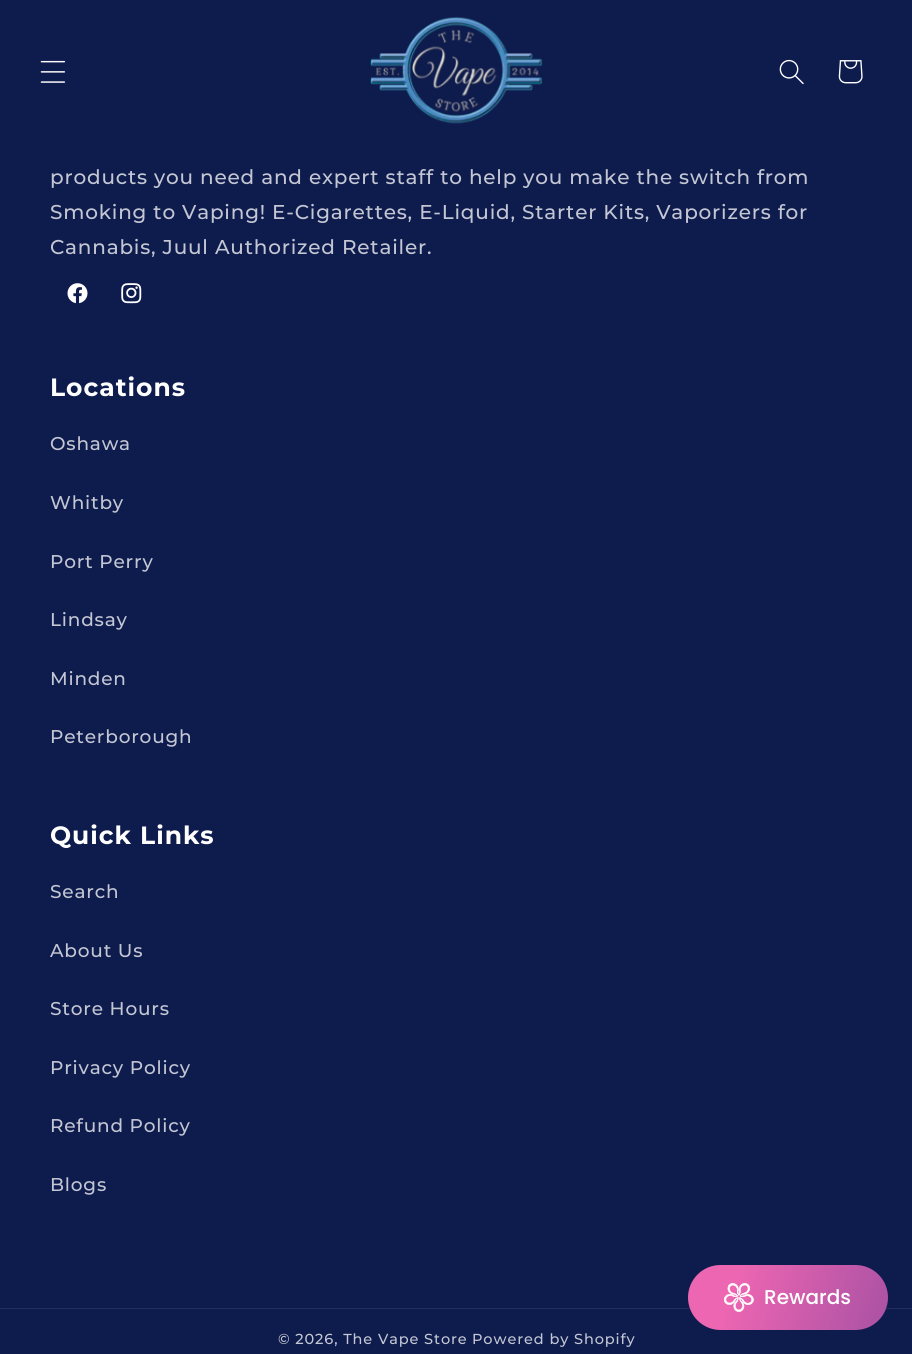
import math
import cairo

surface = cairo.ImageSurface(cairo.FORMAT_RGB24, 912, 1354)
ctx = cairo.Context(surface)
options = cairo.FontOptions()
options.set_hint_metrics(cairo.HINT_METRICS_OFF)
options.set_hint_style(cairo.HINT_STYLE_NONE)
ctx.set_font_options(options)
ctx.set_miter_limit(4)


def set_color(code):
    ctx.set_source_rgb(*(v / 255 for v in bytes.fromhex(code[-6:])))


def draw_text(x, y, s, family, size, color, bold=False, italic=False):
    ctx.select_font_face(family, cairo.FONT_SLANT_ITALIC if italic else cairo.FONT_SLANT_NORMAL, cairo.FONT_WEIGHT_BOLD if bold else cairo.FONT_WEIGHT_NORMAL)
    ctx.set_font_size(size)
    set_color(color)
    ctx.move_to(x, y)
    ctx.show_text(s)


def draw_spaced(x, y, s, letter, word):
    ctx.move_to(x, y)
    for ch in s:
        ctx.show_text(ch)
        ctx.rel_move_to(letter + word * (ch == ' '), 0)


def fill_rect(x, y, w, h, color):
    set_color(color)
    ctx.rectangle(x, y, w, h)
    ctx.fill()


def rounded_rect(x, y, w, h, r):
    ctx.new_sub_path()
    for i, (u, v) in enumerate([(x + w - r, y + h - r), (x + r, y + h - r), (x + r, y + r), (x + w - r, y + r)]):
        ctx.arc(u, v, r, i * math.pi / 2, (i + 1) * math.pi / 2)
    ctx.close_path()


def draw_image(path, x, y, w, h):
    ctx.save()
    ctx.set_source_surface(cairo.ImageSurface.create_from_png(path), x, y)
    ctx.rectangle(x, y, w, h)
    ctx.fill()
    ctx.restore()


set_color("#0e1b4d")
ctx.paint()
draw_image("assets/img1.png", 40, 60, 26, 23)
draw_image("assets/img2.png", 370, 16, 173, 108)
draw_image("assets/img3.png", 779, 59, 25, 26)
draw_image("assets/img4.png", 838, 60, 25, 24)
ctx.select_font_face("Montserrat Medium")
ctx.set_font_size(20)
set_color("#c3c6d3")
draw_spaced(50, 184, "products you need and expert staff to help you make the switch from", 0.8, 0)
draw_spaced(50, 219, "Smoking to Vaping! E-Cigarettes, E-Liquid, Starter Kits, Vaporizers for", 0.8, 0)
draw_spaced(50, 254, "Cannabis, Juul Authorized Retailer.", 0.8, 0)
draw_image("assets/img5.png", 67, 283, 21, 21)
draw_image("assets/img6.png", 121, 283, 21, 21)
ctx.select_font_face("Montserrat", cairo.FONT_SLANT_NORMAL, cairo.FONT_WEIGHT_BOLD)
ctx.set_font_size(25)
set_color("#ffffff")
draw_spaced(50, 396, "Locations", 1, 0)
ctx.select_font_face("Montserrat Medium")
ctx.set_font_size(18.5)
set_color("#c3c6d3")
draw_spaced(50, 450, "Oshawa", 0.8, 0)
draw_spaced(50, 509, "Whitby", 0.8, 0)
draw_spaced(50, 568, "Port Perry", 0.8, 0)
draw_spaced(50, 626, "Lindsay", 0.8, 0)
draw_spaced(50, 685, "Minden", 0.8, 0)
draw_spaced(50, 743, "Peterborough", 0.8, 0)
ctx.select_font_face("Montserrat", cairo.FONT_SLANT_NORMAL, cairo.FONT_WEIGHT_BOLD)
ctx.set_font_size(25)
set_color("#ffffff")
draw_spaced(50, 844, "Quick Links", 1, 0)
ctx.select_font_face("Montserrat Medium")
ctx.set_font_size(18.5)
set_color("#c3c6d3")
draw_spaced(50, 898, "Search", 0.8, 0)
draw_spaced(50, 957, "About Us", 0.8, 0)
draw_spaced(50, 1015, "Store Hours", 0.8, 0)
draw_spaced(50, 1074, "Privacy Policy", 0.8, 0)
draw_spaced(50, 1132, "Refund Policy", 0.8, 0)
draw_spaced(50, 1191, "Blogs", 0.8, 0)
fill_rect(0, 1308, 912, 1, "#212d5b")
ctx.set_font_size(14.5)
set_color("#c3c6d3")
draw_spaced(278, 1344, "© 2026, The Vape Store", 0.9, 0)
draw_spaced(472, 1344, "Powered by Shopify", 0.9, 0)
gradient = cairo.LinearGradient(688, 1262, 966, 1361)
gradient.add_color_stop_rgba(0.17, 0.929, 0.4, 0.698, 1)
gradient.add_color_stop_rgba(1, 0.525, 0.275, 0.612, 1)
ctx.set_source(gradient)
rounded_rect(688, 1265, 200, 65, 32.5)
ctx.fill()
draw_image("assets/img7.png", 724, 1283, 30, 29)
draw_text(764, 1304, "Rewards", "Poppins Medium", 20, "#ffffff")
surface.write_to_png("output.png")
